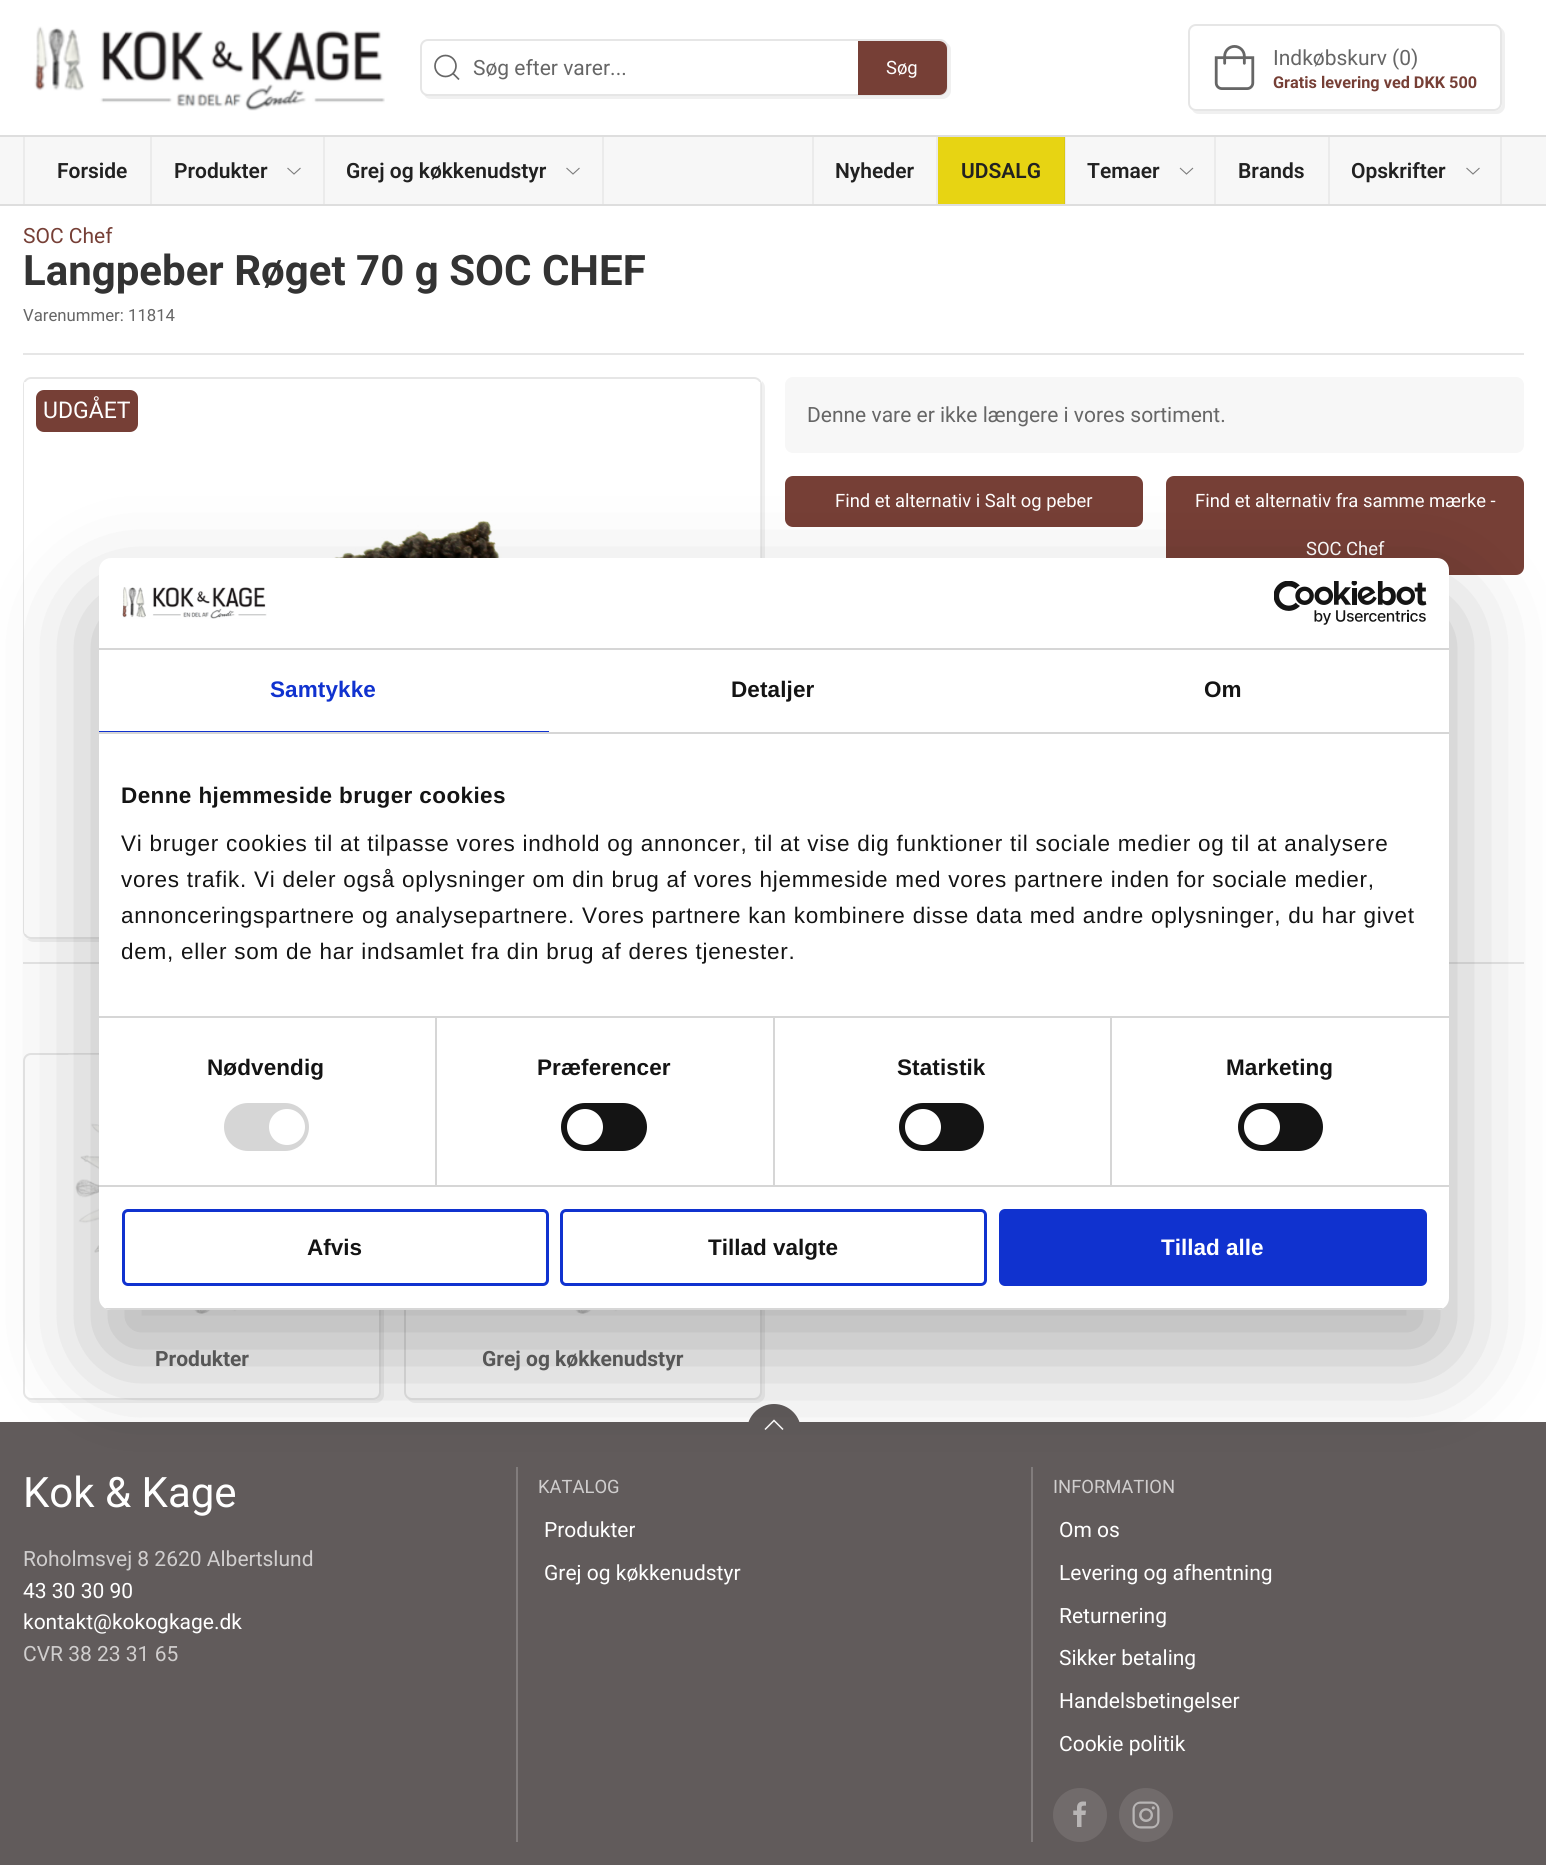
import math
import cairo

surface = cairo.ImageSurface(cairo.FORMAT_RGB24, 1546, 1865)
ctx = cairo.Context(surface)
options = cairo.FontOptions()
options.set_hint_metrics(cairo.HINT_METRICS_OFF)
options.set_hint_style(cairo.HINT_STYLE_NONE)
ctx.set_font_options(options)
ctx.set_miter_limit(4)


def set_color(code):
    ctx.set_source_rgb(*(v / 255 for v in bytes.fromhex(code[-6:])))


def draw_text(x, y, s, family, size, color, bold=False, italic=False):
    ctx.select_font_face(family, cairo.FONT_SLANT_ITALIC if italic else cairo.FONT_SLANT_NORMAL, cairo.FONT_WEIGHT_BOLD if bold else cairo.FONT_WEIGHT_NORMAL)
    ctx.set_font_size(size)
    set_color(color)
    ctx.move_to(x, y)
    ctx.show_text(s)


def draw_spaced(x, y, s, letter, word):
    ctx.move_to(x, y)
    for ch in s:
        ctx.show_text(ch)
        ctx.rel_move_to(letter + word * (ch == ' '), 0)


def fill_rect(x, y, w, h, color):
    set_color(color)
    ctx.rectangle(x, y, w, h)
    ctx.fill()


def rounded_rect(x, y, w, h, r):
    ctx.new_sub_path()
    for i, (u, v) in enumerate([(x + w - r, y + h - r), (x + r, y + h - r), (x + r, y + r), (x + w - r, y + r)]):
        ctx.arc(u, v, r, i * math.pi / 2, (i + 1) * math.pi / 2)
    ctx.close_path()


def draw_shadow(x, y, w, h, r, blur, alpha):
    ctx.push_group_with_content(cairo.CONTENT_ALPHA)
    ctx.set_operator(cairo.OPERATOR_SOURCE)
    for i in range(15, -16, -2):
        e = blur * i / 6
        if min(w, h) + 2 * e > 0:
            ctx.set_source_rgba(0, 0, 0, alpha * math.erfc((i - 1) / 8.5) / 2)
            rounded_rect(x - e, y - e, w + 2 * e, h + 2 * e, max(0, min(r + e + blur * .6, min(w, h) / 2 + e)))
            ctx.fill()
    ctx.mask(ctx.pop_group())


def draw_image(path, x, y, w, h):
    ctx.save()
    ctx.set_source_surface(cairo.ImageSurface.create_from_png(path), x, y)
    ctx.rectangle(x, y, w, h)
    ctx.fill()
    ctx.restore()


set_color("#ffffff")
ctx.paint()
draw_image("assets/img1.png", 34, 26, 351, 85)
set_color("#f0f0f0")
ctx.new_path()
ctx.move_to(424, 95)
ctx.curve_to(426, 98, 428, 99, 431, 99)
ctx.line_to(943, 99)
ctx.curve_to(947, 99, 951, 95, 951, 91)
ctx.line_to(951, 50)
ctx.curve_to(951, 47, 950, 45, 947, 43)
ctx.line_to(948, 46)
ctx.line_to(948, 88)
ctx.curve_to(948, 93, 945, 96, 940, 96)
ctx.line_to(428, 96)
ctx.close_path()
ctx.fill()
rounded_rect(421, 40, 526, 55, 7)
ctx.set_source_rgba(0, 0, 0, 0.1)
ctx.stroke()
ctx.arc(445.5, 66, 10.5, 0, 2 * math.pi)
set_color("#666666")
ctx.set_line_width(1.7)
ctx.stroke()
ctx.new_path()
ctx.move_to(453, 73.5)
ctx.line_to(459, 79.5)
ctx.close_path()
ctx.stroke()
draw_text(473, 75, "Søg efter varer...", "Roboto", 21, "#666666")
set_color("#763f36")
ctx.new_path()
ctx.move_to(858, 41)
ctx.line_to(939, 41)
ctx.curve_to(943.5, 41, 947, 44.5, 947, 49)
ctx.line_to(947, 87)
ctx.curve_to(947, 91.5, 943.5, 95, 939, 95)
ctx.line_to(858, 95)
ctx.close_path()
ctx.fill()
draw_text(886, 74, "Søg", "Roboto", 18.4, "#ffffff")
set_color("#f0f0f0")
ctx.new_path()
ctx.move_to(1192, 110)
ctx.curve_to(1194, 113, 1196, 114, 1199, 114)
ctx.line_to(1497, 114)
ctx.curve_to(1501, 114, 1505, 110, 1505, 106)
ctx.line_to(1505, 35)
ctx.curve_to(1505, 32, 1503, 29, 1501, 28)
ctx.line_to(1502, 32)
ctx.line_to(1502, 104)
ctx.curve_to(1502, 108, 1498, 111, 1494, 111)
ctx.line_to(1196, 111)
ctx.close_path()
ctx.fill()
set_color("#ffffff")
rounded_rect(1188, 24, 314, 87, 8)
ctx.fill()
rounded_rect(1189, 25, 312, 85, 7)
ctx.set_source_rgba(0, 0, 0, 0.1)
ctx.set_line_width(2)
ctx.stroke()
draw_image("assets/img2.png", 1214, 45, 41, 45)
draw_text(1273, 65, "Indkøbskurv (0)", "Roboto", 21, "#666666")
draw_text(1273, 88, "Gratis levering ved DKK 500", "Roboto", 16.25, "#763f36", bold=True)
fill_rect(0, 137, 1546, 67, "#f7f7f7")
fill_rect(1065, 137, 1, 67, "#ebebeb")
fill_rect(0, 135, 1546, 2, "#dedede")
fill_rect(0, 204, 1546, 2, "#dedede")
fill_rect(23, 137, 2, 67, "#ebebeb")
fill_rect(150, 137, 2, 67, "#ebebeb")
draw_text(57, 178, "Forside", "Roboto SemiBold", 21, "#212121")
fill_rect(323, 137, 2, 67, "#ebebeb")
draw_text(174, 178, "Produkter", "Roboto SemiBold", 21, "#212121")
ctx.new_path()
ctx.move_to(300.5, 168)
ctx.line_to(294, 174)
ctx.line_to(287.5, 168)
set_color("#7c7c7c")
ctx.set_line_width(1.1)
ctx.stroke()
fill_rect(602, 137, 2, 67, "#ebebeb")
draw_text(346, 178, "Grej og køkkenudstyr", "Roboto SemiBold", 21, "#212121")
ctx.new_path()
ctx.move_to(579.5, 168)
ctx.line_to(573, 174)
ctx.line_to(566.5, 168)
set_color("#7c7c7c")
ctx.stroke()
fill_rect(812, 137, 2, 67, "#ebebeb")
fill_rect(936, 137, 2, 67, "#ebebeb")
draw_text(835, 178, "Nyheder", "Roboto SemiBold", 21, "#212121")
fill_rect(938, 137, 126, 67, "#e7d413")
fill_rect(1064, 137, 1, 67, "#dbc912")
draw_text(961, 178, "UDSALG", "Roboto SemiBold", 21, "#212121")
fill_rect(1214, 137, 2, 67, "#ebebeb")
draw_text(1087, 178, "Temaer", "Roboto SemiBold", 21, "#212121")
ctx.new_path()
ctx.move_to(1193, 168)
ctx.line_to(1186.5, 174)
ctx.line_to(1180, 168)
set_color("#7c7c7c")
ctx.stroke()
fill_rect(1328, 137, 2, 67, "#ebebeb")
draw_text(1238, 178, "Brands", "Roboto SemiBold", 21, "#212121")
fill_rect(1500, 137, 2, 67, "#ebebeb")
draw_text(1351, 178, "Opskrifter", "Roboto SemiBold", 21, "#212121")
ctx.new_path()
ctx.move_to(1479.5, 168)
ctx.line_to(1473, 174)
ctx.line_to(1466.5, 168)
set_color("#7c7c7c")
ctx.stroke()
draw_text(23, 243, "SOC Chef", "Roboto", 21, "#763f36")
draw_text(23, 285, "Langpeber Røget 70 g SOC CHEF", "Roboto", 42, "#333333", bold=True)
draw_text(23, 321, "Varenummer: 11814", "Roboto", 16.75, "#666666")
fill_rect(23, 353, 1501, 2, "#e6e6e6")
set_color("#f0f0f0")
ctx.new_path()
ctx.move_to(27, 939)
ctx.curve_to(29, 941, 31, 942, 34, 942)
ctx.line_to(757, 942)
ctx.curve_to(761, 942, 765, 938, 765, 934)
ctx.line_to(765, 388)
ctx.curve_to(765, 385, 764, 383, 762, 381)
ctx.line_to(762, 384)
ctx.line_to(762, 932)
ctx.curve_to(762, 936, 759, 939, 754, 939)
ctx.line_to(30, 939)
ctx.close_path()
ctx.fill()
rounded_rect(24, 378, 737, 560, 7)
ctx.set_source_rgba(0, 0, 0, 0.1)
ctx.set_line_width(2)
ctx.stroke()
draw_image("assets/img3.png", 24, 382, 737, 552)
set_color("#763f36")
rounded_rect(36, 390, 102, 42, 8)
ctx.fill()
draw_text(43, 418, "UDGÅET", "Roboto", 23, "#ffffff")
set_color("#f7f7f7")
rounded_rect(785, 377, 739, 76, 8)
ctx.fill()
draw_text(807, 422, "Denne vare er ikke længere i vores sortiment.", "Roboto", 21, "#666666")
set_color("#763f36")
rounded_rect(785, 476, 358, 51, 8)
ctx.fill()
draw_text(835, 507, "Find et alternativ i Salt og peber", "Roboto", 18.4, "#ffffff")
set_color("#763f36")
rounded_rect(1166, 476, 358, 99, 8)
ctx.fill()
draw_text(1195, 507, "Find et alternativ fra samme mærke -", "Roboto", 18.4, "#ffffff")
draw_text(1306, 555, "SOC Chef", "Roboto", 18.4, "#ffffff")
fill_rect(23, 962, 1501, 2, "#e6e6e6")
set_color("#f0f0f0")
ctx.new_path()
ctx.move_to(27, 1399)
ctx.curve_to(28, 1401, 31, 1403, 34, 1403)
ctx.line_to(376, 1403)
ctx.curve_to(380, 1403, 384, 1399, 384, 1395)
ctx.line_to(384, 1064)
ctx.curve_to(384, 1061, 383, 1059, 380, 1057)
ctx.line_to(381, 1060)
ctx.line_to(381, 1392)
ctx.curve_to(381, 1396, 378, 1400, 374, 1400)
ctx.line_to(30, 1400)
ctx.close_path()
ctx.fill()
rounded_rect(24, 1054, 356, 345, 7)
ctx.set_source_rgba(0, 0, 0, 0.1)
ctx.stroke()
draw_image("assets/img4.png", 68, 1054, 267, 260)
draw_text(155, 1366, "Produkter", "Roboto", 21, "#666666", bold=True)
set_color("#f0f0f0")
ctx.new_path()
ctx.move_to(408, 1399)
ctx.curve_to(409, 1401, 412, 1403, 415, 1403)
ctx.line_to(757, 1403)
ctx.curve_to(761, 1403, 765, 1399, 765, 1395)
ctx.line_to(765, 1064)
ctx.curve_to(765, 1061, 764, 1059, 761, 1057)
ctx.line_to(762, 1060)
ctx.line_to(762, 1392)
ctx.curve_to(762, 1396, 759, 1400, 754, 1400)
ctx.line_to(411, 1400)
ctx.close_path()
ctx.fill()
rounded_rect(405, 1054, 356, 345, 7)
ctx.set_source_rgba(0, 0, 0, 0.1)
ctx.stroke()
draw_image("assets/img5.png", 449, 1310, 267, 4)
draw_text(482, 1366, "Grej og køkkenudstyr", "Roboto", 21, "#666666", bold=True)
fill_rect(0, 1422, 1546, 443, "#615b5b")
ctx.new_path()
ctx.arc(774, 1431, 27, 0, 2 * math.pi)
ctx.fill()
ctx.new_path()
ctx.move_to(765, 1429.5)
ctx.line_to(774, 1420.5)
ctx.line_to(783, 1429.5)
set_color("#ffffff")
ctx.set_line_width(1.5)
ctx.stroke()
draw_text(23, 1507, "Kok & Kage", "Roboto", 42, "#ffffff")
draw_text(23, 1566, "Roholmsvej 8 2620 Albertslund", "Roboto", 21, "#d0cece")
draw_text(23, 1598, "43 30 30 90", "Roboto", 21, "#ffffff")
draw_text(23, 1629, "kontakt@kokogkage.dk", "Roboto", 21, "#ffffff")
draw_text(23, 1661, "CVR 38 23 31 65", "Roboto", 21, "#d0cece")
fill_rect(516, 1467, 2, 375, "#817c7c")
draw_text(538, 1493, "KATALOG", "Roboto", 18.4, "#d0cece")
draw_text(544, 1537, "Produkter", "Roboto", 21, "#ffffff")
draw_text(544, 1580, "Grej og køkkenudstyr", "Roboto", 21, "#ffffff")
fill_rect(1031, 1467, 2, 375, "#817c7c")
draw_text(1053, 1493, "INFORMATION", "Roboto", 18.4, "#d0cece")
draw_text(1059, 1537, "Om os", "Roboto", 21, "#ffffff")
draw_text(1059, 1580, "Levering og afhentning", "Roboto", 21, "#ffffff")
draw_text(1059, 1623, "Returnering", "Roboto", 21, "#ffffff")
draw_text(1059, 1665, "Sikker betaling", "Roboto", 21, "#ffffff")
draw_text(1059, 1708, "Handelsbetingelser", "Roboto", 21, "#ffffff")
draw_text(1059, 1751, "Cookie politik", "Roboto", 21, "#ffffff")
set_color("#716b6b")
ctx.new_path()
ctx.arc(1080, 1815, 27, 0, 2 * math.pi)
ctx.fill()
draw_image("assets/img6.png", 1073, 1801, 13, 26)
ctx.arc(1146, 1815, 27, 0, 2 * math.pi)
ctx.fill()
draw_image("assets/img7.png", 1132, 1801, 28, 28)
set_color("#000000")
draw_shadow(99, 606, 1350, 752, 12, 51, 0.3)
set_color("#ffffff")
rounded_rect(99, 558, 1350, 752, 12)
ctx.fill()
fill_rect(99, 648, 1350, 2, "#d6d6d6")
draw_image("assets/img8.png", 122, 587, 145, 32)
draw_image("assets/img9.png", 1274, 581, 153, 44)
fill_rect(99, 732, 1350, 2, "#d6d6d6")
fill_rect(99, 731, 450, 1, "#1032cf")
ctx.select_font_face("Liberation Sans", cairo.FONT_SLANT_NORMAL, cairo.FONT_WEIGHT_BOLD)
ctx.set_font_size(22.5)
draw_spaced(270, 697, "Samtykke", 0.1, 0)
set_color("#141414")
draw_spaced(731, 697, "Detaljer", 0.1, 0)
draw_spaced(1204, 697, "Om", 0.1, 0)
fill_rect(435, 1017, 2, 168, "#d6d6d6")
fill_rect(773, 1017, 2, 168, "#d6d6d6")
fill_rect(1110, 1017, 2, 168, "#d6d6d6")
fill_rect(99, 1016, 1350, 2, "#d6d6d6")
set_color("#141414")
draw_spaced(121, 803, "Denne hjemmeside bruger cookies", 0.4, 0)
ctx.select_font_face("Liberation Sans")
draw_spaced(121, 851, "Vi bruger cookies til at tilpasse vores indhold og annoncer, til at vise dig funktioner til sociale medier og til at analysere", 0.75, 0)
draw_spaced(121, 887, "vores trafik. Vi deler også oplysninger om din brug af vores hjemmeside med vores partnere inden for sociale medier,", 0.75, 0)
draw_spaced(121, 923, "annonceringspartnere og analysepartnere. Vores partnere kan kombinere disse data med andre oplysninger, du har givet", 0.75, 0)
draw_spaced(121, 959, "dem, eller som de har indsamlet fra din brug af deres tjenester.", 0.75, 0)
fill_rect(99, 1185, 1350, 2, "#d6d6d6")
ctx.select_font_face("Liberation Sans", cairo.FONT_SLANT_NORMAL, cairo.FONT_WEIGHT_BOLD)
set_color("#141414")
draw_spaced(207, 1075, "Nødvendig", 0.1, 0)
set_color("#d6d6d6")
rounded_rect(224, 1103, 85, 48, 24)
ctx.fill()
set_color("#ffffff")
ctx.arc(287, 1127, 18, 0, 2 * math.pi)
ctx.fill()
set_color("#141414")
draw_spaced(537, 1075, "Præferencer", 0.1, 0)
rounded_rect(561, 1103, 86, 48, 24)
ctx.fill()
set_color("#ffffff")
ctx.arc(585, 1127, 18, 0, 2 * math.pi)
ctx.fill()
set_color("#141414")
draw_spaced(897, 1075, "Statistik", 0.1, 0)
rounded_rect(899, 1103, 85, 48, 24)
ctx.fill()
set_color("#ffffff")
ctx.arc(923, 1127, 18, 0, 2 * math.pi)
ctx.fill()
set_color("#141414")
draw_spaced(1226, 1075, "Marketing", 0.1, 0)
rounded_rect(1238, 1103, 85, 48, 24)
ctx.fill()
set_color("#ffffff")
ctx.arc(1262, 1127, 18, 0, 2 * math.pi)
ctx.fill()
ctx.save()
rounded_rect(99, 558, 1350, 752, 12)
ctx.clip()
fill_rect(99, 1308, 1350, 2, "#d6d6d6")
ctx.restore()
rounded_rect(123.5, 1210.5, 424, 74, 4.5)
set_color("#1032cf")
ctx.set_line_width(3)
ctx.stroke()
draw_text(307, 1255, "Afvis", "Liberation Sans", 22.5, "#141414", bold=True)
rounded_rect(561.5, 1210.5, 424, 74, 4.5)
set_color("#1032cf")
ctx.stroke()
draw_text(708, 1255, "Tillad valgte", "Liberation Sans", 22.5, "#141414", bold=True)
set_color("#1032cf")
rounded_rect(1000.5, 1210.5, 425, 74, 4.5)
ctx.fill_preserve()
ctx.stroke()
draw_text(1161, 1255, "Tillad alle", "Liberation Sans", 22.5, "#ffffff", bold=True)
surface.write_to_png("output.png")
